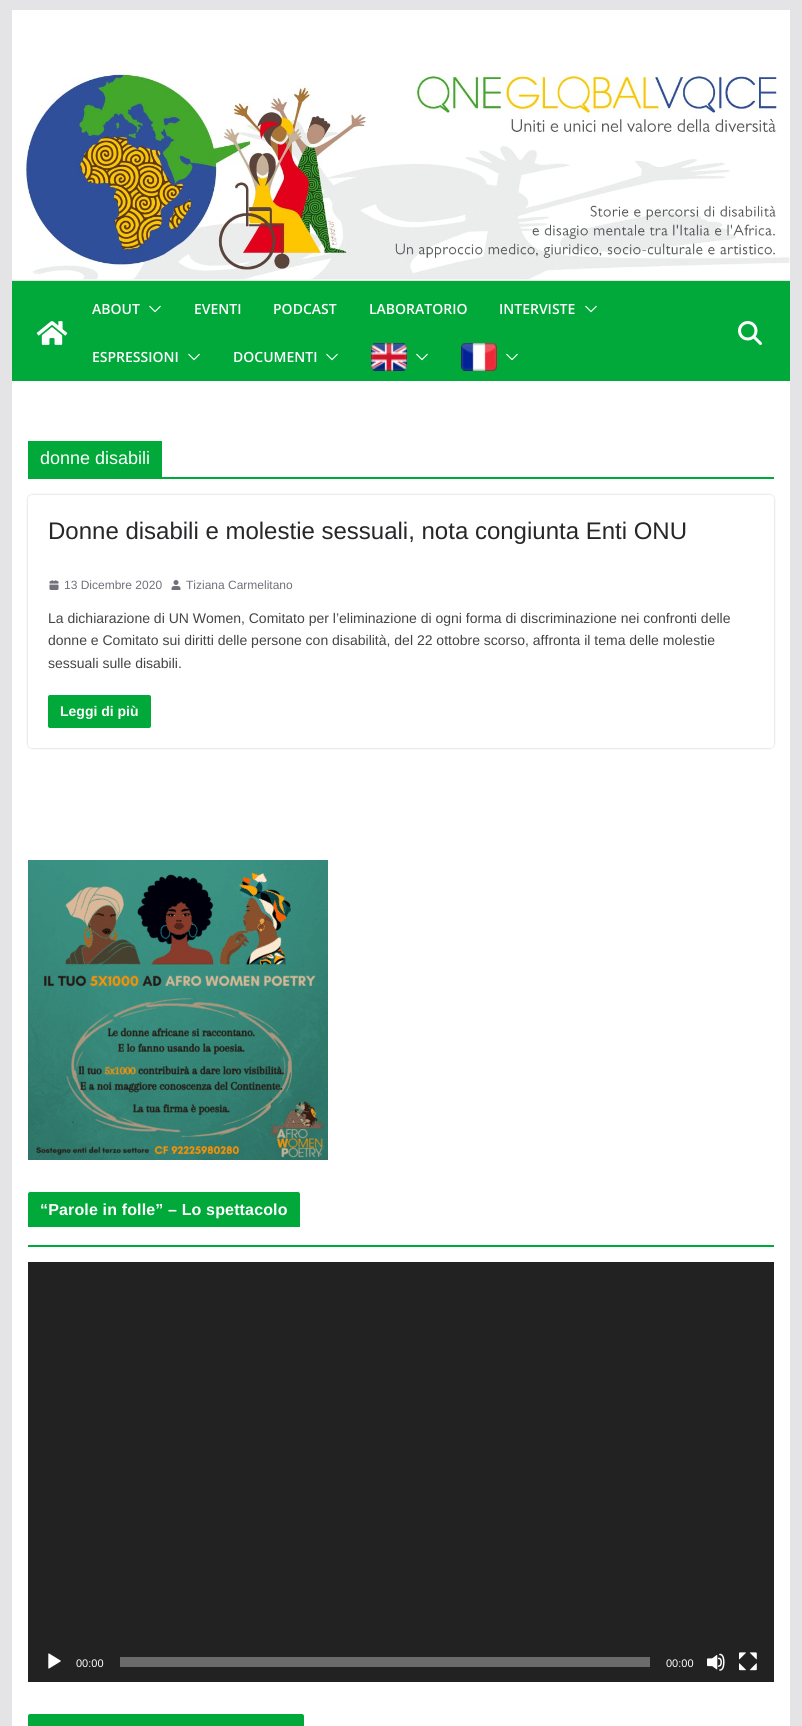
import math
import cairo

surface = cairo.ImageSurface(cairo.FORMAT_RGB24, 802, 1726)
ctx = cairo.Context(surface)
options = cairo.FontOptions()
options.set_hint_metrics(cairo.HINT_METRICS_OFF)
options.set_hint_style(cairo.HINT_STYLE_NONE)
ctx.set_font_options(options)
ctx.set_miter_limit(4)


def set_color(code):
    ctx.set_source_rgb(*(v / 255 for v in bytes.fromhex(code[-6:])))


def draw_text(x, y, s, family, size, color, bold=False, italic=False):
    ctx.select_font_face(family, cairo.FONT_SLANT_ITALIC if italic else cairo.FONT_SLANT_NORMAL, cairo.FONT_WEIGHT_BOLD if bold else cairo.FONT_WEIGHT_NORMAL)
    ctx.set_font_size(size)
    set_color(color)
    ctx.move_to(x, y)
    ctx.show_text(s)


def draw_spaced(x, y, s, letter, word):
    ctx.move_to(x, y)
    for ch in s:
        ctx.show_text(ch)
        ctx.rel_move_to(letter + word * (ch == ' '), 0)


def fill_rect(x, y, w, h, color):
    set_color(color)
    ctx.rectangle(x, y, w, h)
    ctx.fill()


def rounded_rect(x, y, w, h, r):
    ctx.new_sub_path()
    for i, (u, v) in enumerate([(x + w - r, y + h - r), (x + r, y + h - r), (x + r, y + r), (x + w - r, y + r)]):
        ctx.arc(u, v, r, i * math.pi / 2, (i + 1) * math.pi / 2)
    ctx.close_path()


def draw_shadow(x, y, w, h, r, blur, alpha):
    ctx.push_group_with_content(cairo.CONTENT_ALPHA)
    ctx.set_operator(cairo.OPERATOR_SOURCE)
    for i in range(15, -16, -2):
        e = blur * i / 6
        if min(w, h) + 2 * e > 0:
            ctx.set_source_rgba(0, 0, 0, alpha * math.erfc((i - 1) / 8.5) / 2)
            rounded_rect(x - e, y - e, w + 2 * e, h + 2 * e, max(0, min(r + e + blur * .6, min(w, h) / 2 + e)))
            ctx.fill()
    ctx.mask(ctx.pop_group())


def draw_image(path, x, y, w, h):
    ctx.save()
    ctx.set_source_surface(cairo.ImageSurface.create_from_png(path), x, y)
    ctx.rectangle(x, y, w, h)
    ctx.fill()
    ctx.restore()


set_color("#e4e4e7")
ctx.paint()
fill_rect(12, 10, 778, 270, "#ffffff")
draw_image("assets/img1.png", 26, 68, 764, 212)
fill_rect(12, 281, 778, 100, "#00a939")
draw_image("assets/img2.png", 36, 321, 32, 24)
draw_text(92, 314, "ABOUT", "Open Sans SemiBold", 14, "#ffffff")
draw_image("assets/img3.png", 149, 305, 12, 8)
draw_text(194, 314, "EVENTI", "Open Sans SemiBold", 14, "#ffffff")
draw_text(273, 314, "PODCAST", "Open Sans SemiBold", 14, "#ffffff")
draw_text(369, 314, "LABORATORIO", "Open Sans SemiBold", 14, "#ffffff")
draw_text(499, 314, "INTERVISTE", "Open Sans SemiBold", 14, "#ffffff")
draw_image("assets/img3.png", 585, 305, 12, 8)
draw_text(92, 362, "ESPRESSIONI", "Open Sans SemiBold", 14, "#ffffff")
draw_image("assets/img3.png", 188, 353, 12, 8)
draw_text(233, 362, "DOCUMENTI", "Open Sans SemiBold", 14, "#ffffff")
draw_image("assets/img3.png", 326, 353, 12, 8)
draw_image("assets/img4.png", 371, 343, 36, 28)
draw_image("assets/img3.png", 416, 353, 12, 8)
draw_image("assets/img5.png", 461, 343, 36, 28)
draw_image("assets/img3.png", 506, 353, 12, 8)
draw_image("assets/img6.png", 738, 321, 24, 24)
fill_rect(12, 381, 778, 1345, "#ffffff")
fill_rect(28, 477, 746, 2, "#00a939")
fill_rect(28, 441, 134, 36, "#00a939")
draw_text(40, 464, "donne disabili", "Liberation Sans", 18, "#ffffff")
ctx.save()
ctx.set_fill_rule(cairo.FILL_RULE_EVEN_ODD)
ctx.new_path()
ctx.move_to(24, 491)
ctx.line_to(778, 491)
ctx.line_to(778, 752)
ctx.line_to(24, 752)
ctx.close_path()
ctx.move_to(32, 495)
ctx.line_to(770, 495)
ctx.curve_to(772, 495, 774, 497, 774, 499)
ctx.line_to(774, 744)
ctx.curve_to(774, 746, 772, 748, 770, 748)
ctx.line_to(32, 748)
ctx.curve_to(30, 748, 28, 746, 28, 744)
ctx.line_to(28, 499)
ctx.curve_to(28, 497, 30, 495, 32, 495)
ctx.close_path()
ctx.clip()
set_color("#000000")
draw_shadow(28, 495, 746, 253, 4, 1, 0.24)
ctx.restore()
draw_text(48, 539, "Donne disabili e molestie sessuali, nota congiunta Enti ONU", "Liberation Sans", 24, "#27272a")
draw_image("assets/img7.png", 49, 580, 10, 10)
draw_text(64, 589, "13 Dicembre 2020", "Liberation Sans", 12, "#71717a")
draw_image("assets/img8.png", 171, 580, 10, 10)
draw_text(186, 589, "Tiziana Carmelitano", "Liberation Sans", 12, "#71717a")
draw_text(48, 623, "La dichiarazione di UN Women, Comitato per l’eliminazione di ogni forma di discriminazione nei confronti delle", "Liberation Sans", 14, "#444444")
draw_text(48, 645, "donne e Comitato sui diritti delle persone con disabilità, del 22 ottobre scorso, affronta il tema delle molestie", "Liberation Sans", 14, "#444444")
draw_text(48, 668, "sessuali sulle disabili.", "Liberation Sans", 14, "#444444")
set_color("#00a939")
rounded_rect(48, 695, 103, 33, 2)
ctx.fill()
draw_text(60, 716, "Leggi di più", "Liberation Sans", 14, "#ffffff", bold=True)
draw_image("assets/img9.png", 28, 860, 300, 300)
fill_rect(28, 1245, 746, 2, "#00a939")
ctx.new_path()
ctx.move_to(30, 1192)
ctx.line_to(298, 1192)
ctx.curve_to(299, 1192, 300, 1193, 300, 1194)
ctx.line_to(300, 1227)
ctx.line_to(28, 1227)
ctx.line_to(28, 1194)
ctx.curve_to(28, 1193, 29, 1192, 30, 1192)
ctx.close_path()
ctx.fill()
ctx.set_font_size(16)
set_color("#ffffff")
draw_spaced(40, 1215, "“Parole in folle” – Lo spettacolo", 0.15, 0)
fill_rect(28, 1262, 746, 420, "#222222")
draw_image("assets/img10.png", 48, 1653, 13, 16)
draw_text(76, 1667, "00:00", "Liberation Sans", 11, "#ffffff")
fill_rect(120, 1657, 530, 10, "#6b6b6b")
draw_text(666, 1667, "00:00", "Liberation Sans", 11, "#ffffff")
draw_image("assets/img11.png", 707, 1653, 18, 18)
draw_image("assets/img12.png", 739, 1652, 18, 19)
set_color("#00a939")
ctx.new_path()
ctx.move_to(30, 1714)
ctx.line_to(302, 1714)
ctx.curve_to(303, 1714, 304, 1715, 304, 1716)
ctx.line_to(304, 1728)
ctx.line_to(28, 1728)
ctx.line_to(28, 1716)
ctx.curve_to(28, 1715, 29, 1714, 30, 1714)
ctx.close_path()
ctx.fill()
surface.write_to_png("output.png")
